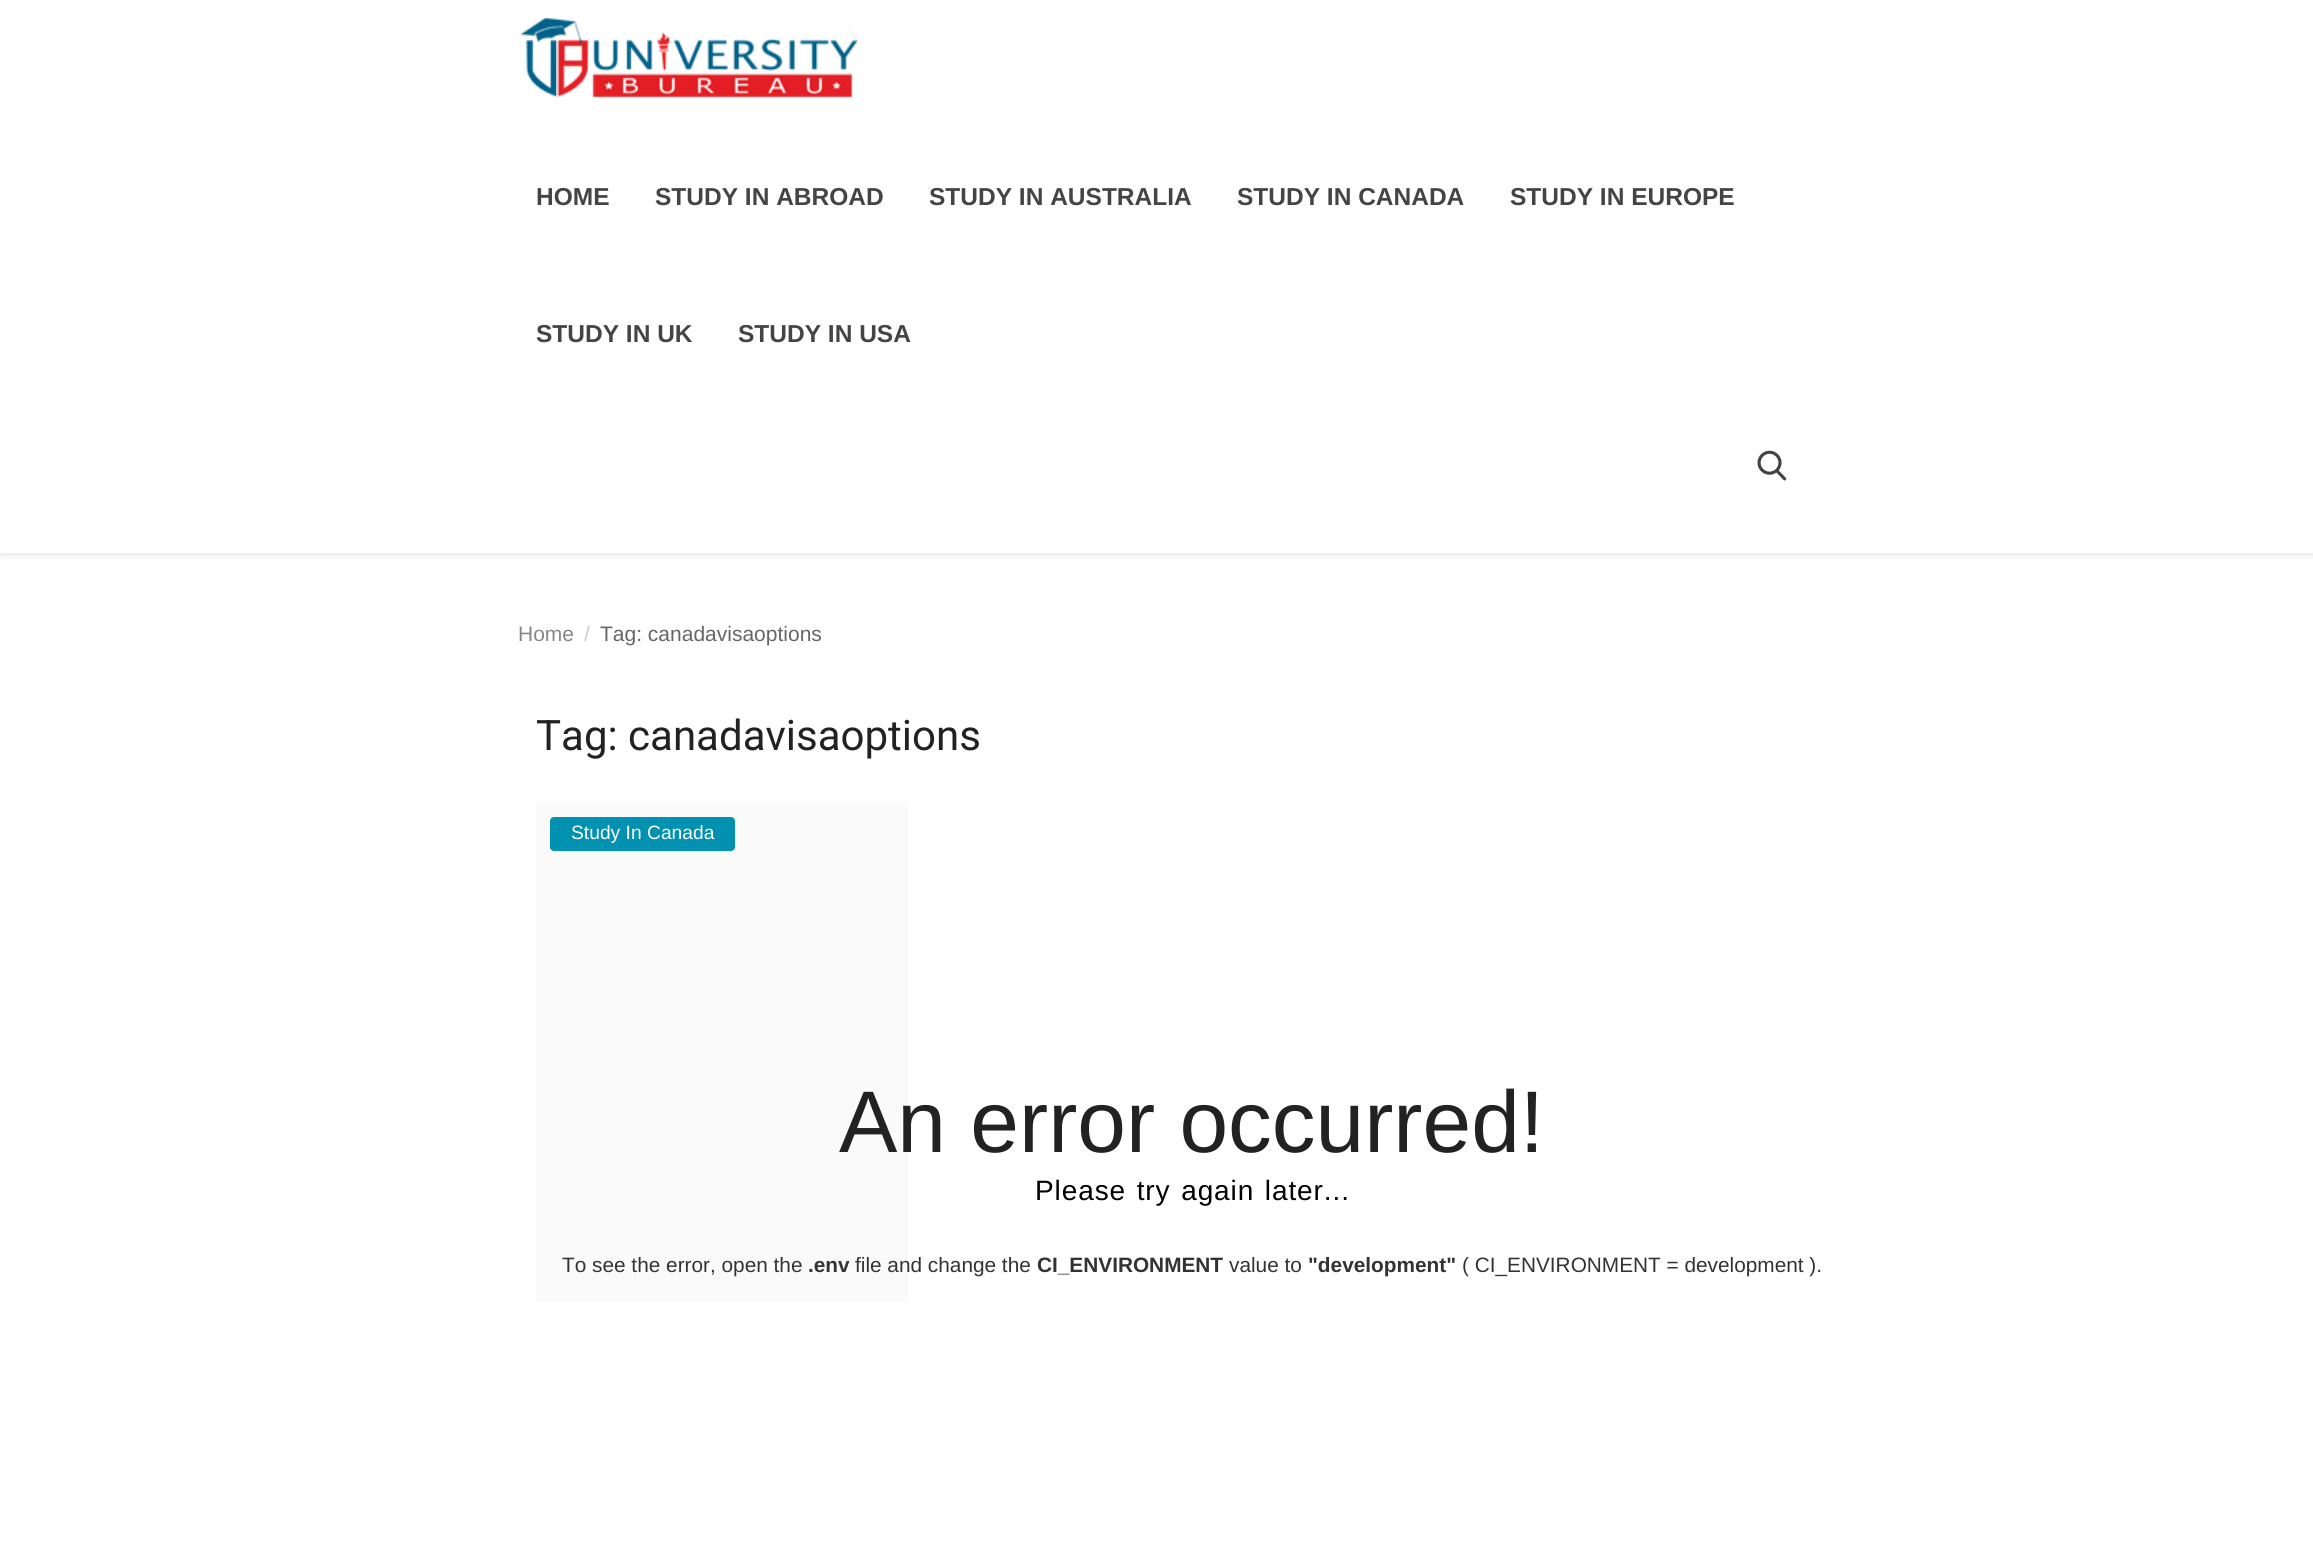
import math
import cairo

surface = cairo.ImageSurface(cairo.FORMAT_RGB24, 2313, 1552)
ctx = cairo.Context(surface)
options = cairo.FontOptions()
options.set_hint_metrics(cairo.HINT_METRICS_OFF)
options.set_hint_style(cairo.HINT_STYLE_NONE)
ctx.set_font_options(options)
ctx.set_miter_limit(4)


def set_color(code):
    ctx.set_source_rgb(*(v / 255 for v in bytes.fromhex(code[-6:])))


def draw_text(x, y, s, family, size, color, bold=False, italic=False):
    ctx.select_font_face(family, cairo.FONT_SLANT_ITALIC if italic else cairo.FONT_SLANT_NORMAL, cairo.FONT_WEIGHT_BOLD if bold else cairo.FONT_WEIGHT_NORMAL)
    ctx.set_font_size(size)
    set_color(color)
    ctx.move_to(x, y)
    ctx.show_text(s)


def draw_spaced(x, y, s, letter, word):
    ctx.move_to(x, y)
    for ch in s:
        ctx.show_text(ch)
        ctx.rel_move_to(letter + word * (ch == ' '), 0)


def fill_rect(x, y, w, h, color):
    set_color(color)
    ctx.rectangle(x, y, w, h)
    ctx.fill()


def rounded_rect(x, y, w, h, r):
    ctx.new_sub_path()
    for i, (u, v) in enumerate([(x + w - r, y + h - r), (x + r, y + h - r), (x + r, y + r), (x + w - r, y + r)]):
        ctx.arc(u, v, r, i * math.pi / 2, (i + 1) * math.pi / 2)
    ctx.close_path()


def draw_shadow(x, y, w, h, r, blur, alpha):
    ctx.push_group_with_content(cairo.CONTENT_ALPHA)
    ctx.set_operator(cairo.OPERATOR_SOURCE)
    for i in range(15, -16, -2):
        e = blur * i / 6
        if min(w, h) + 2 * e > 0:
            ctx.set_source_rgba(0, 0, 0, alpha * math.erfc((i - 1) / 8.5) / 2)
            rounded_rect(x - e, y - e, w + 2 * e, h + 2 * e, max(0, min(r + e + blur * .6, min(w, h) / 2 + e)))
            ctx.fill()
    ctx.mask(ctx.pop_group())


def draw_image(path, x, y, w, h):
    ctx.save()
    ctx.set_source_surface(cairo.ImageSurface.create_from_png(path), x, y)
    ctx.rectangle(x, y, w, h)
    ctx.fill()
    ctx.restore()


set_color("#ffffff")
ctx.paint()
ctx.save()
ctx.rectangle(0, 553, 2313, 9)
ctx.clip()
set_color("#e4e4e4")
draw_shadow(0, -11, 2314, 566, 0, 3.5, 1)
ctx.restore()
draw_image("assets/img1.png", 520, 18, 338, 80)
draw_text(536, 205, "HOME", "Liberation Sans", 24.5, "#444444", bold=True)
draw_text(655, 205, "STUDY IN ABROAD", "Liberation Sans", 24.5, "#444444", bold=True)
draw_text(929, 205, "STUDY IN AUSTRALIA", "Liberation Sans", 24.5, "#444444", bold=True)
draw_text(1237, 205, "STUDY IN CANADA", "Liberation Sans", 24.5, "#444444", bold=True)
draw_text(1510, 205, "STUDY IN EUROPE", "Liberation Sans", 24.5, "#444444", bold=True)
draw_text(536, 342, "STUDY IN UK", "Liberation Sans", 24.5, "#444444", bold=True)
draw_text(738, 342, "STUDY IN USA", "Liberation Sans", 24.5, "#444444", bold=True)
draw_image("assets/img2.png", 1757, 450, 30, 31)
draw_text(518, 641, "Home", "Liberation Sans", 21, "#888888")
draw_text(584, 641, "/", "Liberation Sans", 21, "#cccccc")
draw_text(600, 641, "Tag: canadavisaoptions", "Liberation Sans", 21, "#666666")
draw_text(536, 750, "Tag: canadavisaoptions", "Roboto", 42, "#222222")
fill_rect(536, 803, 372, 499, "#fafafa")
set_color("#0291b1")
rounded_rect(550, 817, 185, 34, 4)
ctx.fill()
draw_text(571, 839, "Study In Canada", "Liberation Sans", 19.25, "#ffffff")
draw_text(839, 1152, "An error occurred!", "Liberation Sans", 87.5, "#222222")
ctx.set_font_size(28)
set_color("#000000")
draw_spaced(1035, 1200, "Please try again later...", 0.9, 2)
draw_text(562, 1272, "To see the error, open the", "Liberation Sans", 20.8, "#333333")
draw_text(808, 1272, ".env", "Liberation Sans", 20.8, "#333333", bold=True)
draw_text(855, 1272, "file and change the", "Liberation Sans", 20.8, "#333333")
draw_text(1037, 1272, "CI_ENVIRONMENT", "Liberation Sans", 20.8, "#333333", bold=True)
draw_text(1229, 1272, "value to", "Liberation Sans", 20.8, "#333333")
draw_text(1308, 1272, "\"development\"", "Liberation Sans", 20.8, "#333333", bold=True)
draw_text(1462, 1272, "( CI_ENVIRONMENT = development ).", "Liberation Sans", 20.8, "#333333")
surface.write_to_png("output.png")
